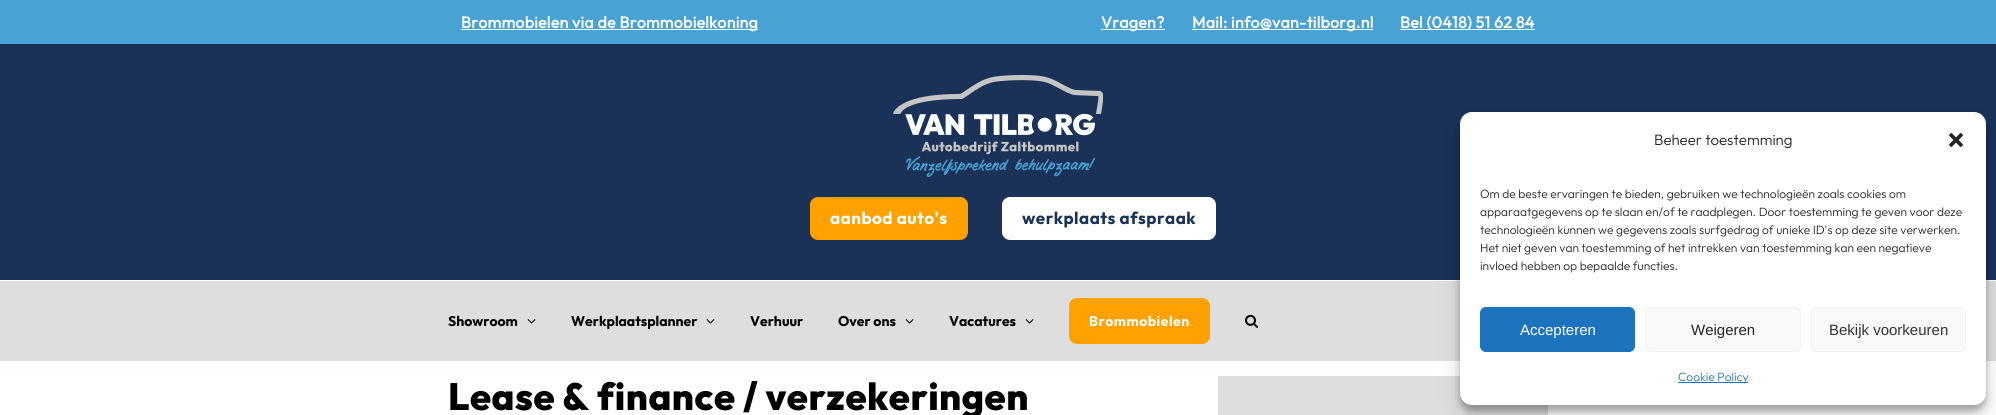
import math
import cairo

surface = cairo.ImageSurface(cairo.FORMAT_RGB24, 1996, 415)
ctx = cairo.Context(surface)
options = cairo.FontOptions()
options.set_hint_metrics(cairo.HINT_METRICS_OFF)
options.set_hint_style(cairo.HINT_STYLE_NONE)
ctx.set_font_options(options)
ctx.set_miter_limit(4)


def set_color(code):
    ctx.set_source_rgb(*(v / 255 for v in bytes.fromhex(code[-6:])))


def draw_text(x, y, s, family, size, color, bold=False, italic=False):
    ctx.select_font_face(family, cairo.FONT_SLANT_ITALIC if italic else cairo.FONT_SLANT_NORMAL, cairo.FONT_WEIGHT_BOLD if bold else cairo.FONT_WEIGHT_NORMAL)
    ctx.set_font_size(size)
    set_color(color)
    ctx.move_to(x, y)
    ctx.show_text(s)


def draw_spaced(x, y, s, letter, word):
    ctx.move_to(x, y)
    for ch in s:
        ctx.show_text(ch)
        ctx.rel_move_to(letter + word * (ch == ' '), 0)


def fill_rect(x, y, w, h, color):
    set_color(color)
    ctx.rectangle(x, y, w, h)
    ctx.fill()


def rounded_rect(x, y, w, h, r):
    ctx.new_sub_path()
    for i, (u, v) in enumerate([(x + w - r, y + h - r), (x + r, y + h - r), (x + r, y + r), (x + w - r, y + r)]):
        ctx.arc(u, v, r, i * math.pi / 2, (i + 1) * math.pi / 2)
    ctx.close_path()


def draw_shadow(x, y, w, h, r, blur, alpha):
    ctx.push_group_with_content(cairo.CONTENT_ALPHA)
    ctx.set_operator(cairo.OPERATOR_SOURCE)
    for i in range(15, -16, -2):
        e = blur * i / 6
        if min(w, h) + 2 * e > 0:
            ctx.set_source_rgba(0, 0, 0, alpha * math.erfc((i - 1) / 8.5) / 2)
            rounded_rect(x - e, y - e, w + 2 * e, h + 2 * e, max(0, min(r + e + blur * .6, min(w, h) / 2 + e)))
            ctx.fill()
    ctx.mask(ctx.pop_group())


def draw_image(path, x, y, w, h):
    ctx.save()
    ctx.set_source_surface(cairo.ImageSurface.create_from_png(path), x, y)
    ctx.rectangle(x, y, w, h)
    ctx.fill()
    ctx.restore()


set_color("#ffffff")
ctx.paint()
fill_rect(0, 0, 1996, 44, "#49a2d4")
fill_rect(461, 29, 297, 1, "#ffffff")
ctx.select_font_face("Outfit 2", cairo.FONT_SLANT_NORMAL, cairo.FONT_WEIGHT_BOLD)
ctx.set_font_size(16)
draw_spaced(461, 28, "Brommobielen via de Brommobielkoning", 0.25, 0)
fill_rect(1101, 29, 64, 1, "#ffffff")
draw_spaced(1101, 28, "Vragen?", 0.25, 0)
fill_rect(1192, 29, 181, 1, "#ffffff")
draw_spaced(1192, 28, "Mail: info@van-tilborg.nl", 0.25, 0)
fill_rect(1400, 29, 135, 1, "#ffffff")
draw_spaced(1400, 28, "Bel (0418) 51 62 84", 0.25, 0)
fill_rect(0, 44, 1996, 236, "#1a3257")
draw_image("assets/img1.png", 893, 75, 211, 102)
set_color("#ffa100")
rounded_rect(810, 197, 158, 43, 8)
ctx.fill()
ctx.select_font_face("Outfit", cairo.FONT_SLANT_NORMAL, cairo.FONT_WEIGHT_BOLD)
ctx.set_font_size(17)
set_color("#ffffff")
draw_spaced(830, 224, "aanbod auto's", 0.5, 0)
rounded_rect(1002, 197, 214, 43, 8)
ctx.fill()
set_color("#1a3257")
draw_spaced(1022, 224, "werkplaats afspraak", 0.5, 0)
fill_rect(0, 281, 1996, 80, "#dedede")
draw_text(448, 326, "Showroom", "Outfit", 14, "#000000", bold=True)
draw_image("assets/img2.png", 527, 319, 9, 5)
draw_text(571, 326, "Werkplaatsplanner", "Outfit", 14, "#000000", bold=True)
draw_image("assets/img2.png", 706, 319, 9, 5)
draw_text(750, 326, "Verhuur", "Outfit", 14, "#000000", bold=True)
draw_text(838, 326, "Over ons", "Outfit", 14, "#000000", bold=True)
draw_image("assets/img2.png", 905, 319, 9, 5)
draw_text(949, 326, "Vacatures", "Outfit", 14, "#000000", bold=True)
draw_image("assets/img2.png", 1025, 319, 9, 5)
set_color("#ffa100")
rounded_rect(1069, 298, 141, 46, 8)
ctx.fill()
set_color("#ffffff")
draw_spaced(1089, 326, "Brommobielen", 0.5, 0)
draw_image("assets/img3.png", 1245, 314, 13, 14)
fill_rect(0, 375, 1996, 1, "#fffcfc")
ctx.select_font_face("Outfit ExtraBold")
ctx.set_font_size(38)
set_color("#000000")
draw_spaced(448, 410, "Lease & finance / verzekeringen", 0.5, 0)
fill_rect(1218, 376, 330, 39, "#dedede")
set_color("#000000")
draw_shadow(1460, 118, 526, 293, 12, 3, 0.23)
draw_shadow(1460, 122, 526, 293, 12, 10, 0.19)
set_color("#ffffff")
rounded_rect(1460, 112, 526, 293, 12)
ctx.fill()
draw_text(1654, 145, "Beheer toestemming", "Outfit Light", 15, "#222222")
draw_image("assets/img4.png", 1949, 133, 14, 14)
draw_text(1480, 198, "Om de beste ervaringen te bieden, gebruiken we technologieën zoals cookies om", "Outfit Light", 12, "#222222")
draw_text(1480, 216, "apparaatgegevens op te slaan en/of te raadplegen. Door toestemming te geven voor deze", "Outfit Light", 12, "#222222")
draw_text(1480, 234, "technologieën kunnen we gegevens zoals surfgedrag of unieke ID's op deze site verwerken.", "Outfit Light", 12, "#222222")
draw_text(1480, 252, "Het niet geven van toestemming of het intrekken van toestemming kan een negatieve", "Outfit Light", 12, "#222222")
draw_text(1480, 270, "invloed hebben op bepaalde functies.", "Outfit Light", 12, "#222222")
set_color("#1e73be")
rounded_rect(1480.5, 307.5, 154, 44, 5.5)
ctx.fill_preserve()
ctx.set_line_width(1)
ctx.stroke()
draw_text(1520, 335, "Accepteren", "Liberation Sans", 15, "#ffffff")
set_color("#f9f9f9")
rounded_rect(1645.5, 307.5, 155, 44, 5.5)
ctx.fill_preserve()
set_color("#f2f2f2")
ctx.stroke()
draw_text(1691, 335, "Weigeren", "Liberation Sans", 15, "#222222")
set_color("#f9f9f9")
rounded_rect(1811.5, 307.5, 154, 44, 5.5)
ctx.fill_preserve()
set_color("#f2f2f2")
ctx.stroke()
draw_text(1829, 335, "Bekijk voorkeuren", "Liberation Sans", 15, "#333333")
fill_rect(1678, 382, 70, 1, "#1e73be")
draw_text(1678, 381, "Cookie Policy", "Outfit Light", 12, "#1e73be")
surface.write_to_png("output.png")
